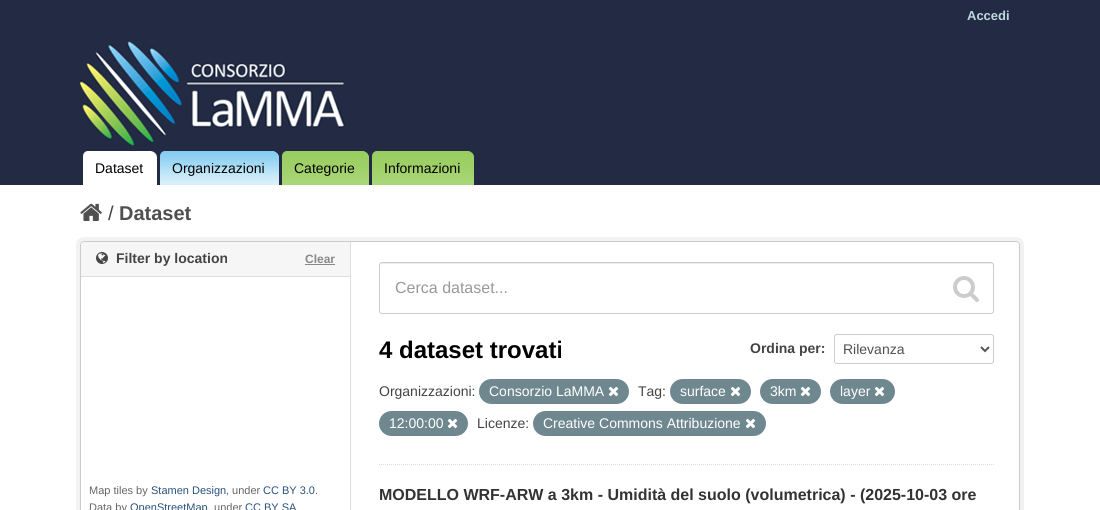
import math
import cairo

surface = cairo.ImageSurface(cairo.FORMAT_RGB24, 1100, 510)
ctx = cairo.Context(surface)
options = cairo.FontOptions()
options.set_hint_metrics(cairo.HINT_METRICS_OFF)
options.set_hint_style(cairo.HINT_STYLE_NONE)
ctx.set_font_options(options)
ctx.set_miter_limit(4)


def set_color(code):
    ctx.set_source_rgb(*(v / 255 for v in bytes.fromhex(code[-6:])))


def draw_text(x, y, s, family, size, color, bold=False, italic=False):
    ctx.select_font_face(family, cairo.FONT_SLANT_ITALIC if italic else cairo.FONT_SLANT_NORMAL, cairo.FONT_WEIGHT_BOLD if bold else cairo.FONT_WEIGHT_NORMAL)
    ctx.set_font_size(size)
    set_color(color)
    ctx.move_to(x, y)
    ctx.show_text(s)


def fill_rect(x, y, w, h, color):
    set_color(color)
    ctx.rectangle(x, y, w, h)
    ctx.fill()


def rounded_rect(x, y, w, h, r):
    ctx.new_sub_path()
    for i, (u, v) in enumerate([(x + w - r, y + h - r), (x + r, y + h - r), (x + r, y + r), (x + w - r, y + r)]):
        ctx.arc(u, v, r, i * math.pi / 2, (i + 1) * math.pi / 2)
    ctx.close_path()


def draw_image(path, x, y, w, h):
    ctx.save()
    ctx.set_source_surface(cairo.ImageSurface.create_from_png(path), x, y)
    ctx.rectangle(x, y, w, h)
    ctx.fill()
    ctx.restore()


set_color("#222b43")
ctx.paint()
draw_text(967, 20, "Accedi", "Liberation Sans", 13, "#bfd7de", bold=True)
draw_image("assets/img1.png", 80, 41, 266, 105)
draw_image("assets/img2.png", 83, 151, 74, 34)
draw_text(95, 173, "Dataset", "Liberation Sans", 14, "#000000")
draw_image("assets/img3.png", 160, 151, 119, 34)
draw_text(172, 173, "Organizzazioni", "Liberation Sans", 14, "#000000")
draw_image("assets/img4.png", 282, 151, 87, 34)
draw_text(294, 173, "Categorie", "Liberation Sans", 14, "#000000")
draw_image("assets/img5.png", 372, 151, 102, 34)
draw_text(384, 173, "Informazioni", "Liberation Sans", 14, "#000000")
fill_rect(0, 185, 1100, 325, "#ffffff")
draw_image("assets/img6.png", 80, 203, 22, 18)
draw_text(108, 220, "/", "Liberation Sans", 20, "#444444")
draw_text(119, 220, "Dataset", "Liberation Sans", 20, "#505050", bold=True)
rounded_rect(78, 239, 944, 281, 6)
set_color("#f2f2f2")
ctx.set_line_width(4)
ctx.stroke()
set_color("#ffffff")
rounded_rect(80, 241, 940, 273, 4)
ctx.fill()
fill_rect(350, 241, 1, 269, "#dddddd")
rounded_rect(80.5, 241.5, 939, 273, 3.5)
set_color("#cccccc")
ctx.set_line_width(1)
ctx.stroke()
set_color("#f6f6f6")
ctx.new_path()
ctx.move_to(84, 242)
ctx.line_to(350, 242)
ctx.line_to(350, 277)
ctx.line_to(81, 277)
ctx.line_to(81, 245)
ctx.curve_to(81, 243.5, 82.5, 242, 84, 242)
ctx.close_path()
ctx.fill()
fill_rect(81, 276, 269, 1, "#dddddd")
draw_image("assets/img7.png", 96, 252, 12, 12)
draw_text(116, 263, "Filter by location", "Liberation Sans", 14, "#444444", bold=True)
draw_text(305, 263, "Clear", "Liberation Sans", 12, "#888888", bold=True)
fill_rect(305, 264, 30, 1, "#888888")
draw_text(89, 494, "Map tiles by", "Liberation Sans", 11, "#666666")
draw_text(151, 494, "Stamen Design", "Liberation Sans", 11, "#2a517b")
draw_text(226, 494, ", under", "Liberation Sans", 11, "#666666")
draw_text(263, 494, "CC BY 3.0", "Liberation Sans", 11, "#2a517b")
draw_text(315, 494, ".", "Liberation Sans", 11, "#666666")
draw_text(89, 511, "Data by", "Liberation Sans", 11, "#666666")
draw_text(130, 511, "OpenStreetMap", "Liberation Sans", 11, "#2a517b")
draw_text(208, 511, ", under", "Liberation Sans", 11, "#666666")
draw_text(245, 511, "CC BY SA", "Liberation Sans", 11, "#2a517b")
ctx.new_path()
ctx.move_to(379, 464.5)
ctx.line_to(994, 464.5)
set_color("#dddddd")
ctx.set_dash([1, 1])
ctx.stroke()
set_color("#ececec")
ctx.new_path()
ctx.move_to(382, 264)
ctx.line_to(991, 264)
ctx.curve_to(992, 264, 993, 265, 993, 266)
ctx.curve_to(993, 265, 993, 263, 991, 263)
ctx.line_to(382, 263)
ctx.curve_to(380, 263, 380, 265, 380, 266)
ctx.curve_to(380, 265, 381, 264, 382, 264)
ctx.close_path()
ctx.fill()
rounded_rect(379.5, 262.5, 614, 51, 2.5)
set_color("#cccccc")
ctx.set_dash([])
ctx.stroke()
draw_text(395, 293, "Cerca dataset...", "Liberation Sans", 16, "#999999")
draw_image("assets/img8.png", 953, 276, 26, 26)
draw_text(379, 358, "4 dataset trovati", "Liberation Sans", 24, "#000000", bold=True)
draw_text(750, 353, "Ordina per:", "Liberation Sans", 14, "#444444", bold=True)
rounded_rect(834.5, 334.5, 159, 29, 2.5)
set_color("#cccccc")
ctx.stroke()
ctx.new_path()
ctx.move_to(981, 347)
ctx.line_to(985, 351)
ctx.line_to(989, 347)
set_color("#555555")
ctx.set_line_width(2)
ctx.stroke()
draw_text(843, 354, "Rilevanza", "Liberation Sans", 14, "#505050")
draw_text(379, 396, "Organizzazioni:", "Liberation Sans", 14, "#444444")
set_color("#6f8890")
rounded_rect(479, 379, 150, 25, 12.5)
ctx.fill()
draw_text(489, 396, "Consorzio LaMMA", "Liberation Sans", 14, "#ffffff")
draw_image("assets/img9.png", 608, 386, 11, 11)
draw_text(638, 396, "Tag:", "Liberation Sans", 14, "#444444")
set_color("#6f8890")
rounded_rect(670, 379, 81, 25, 12.5)
ctx.fill()
draw_text(680, 396, "surface", "Liberation Sans", 14, "#ffffff")
draw_image("assets/img9.png", 730, 386, 11, 11)
set_color("#6f8890")
rounded_rect(760, 379, 61, 25, 12.5)
ctx.fill()
draw_text(770, 396, "3km", "Liberation Sans", 14, "#ffffff")
draw_image("assets/img9.png", 800, 386, 11, 11)
set_color("#6f8890")
rounded_rect(830, 379, 65, 25, 12.5)
ctx.fill()
draw_text(840, 396, "layer", "Liberation Sans", 14, "#ffffff")
draw_image("assets/img9.png", 874, 386, 11, 11)
set_color("#6f8890")
rounded_rect(379, 411, 89, 25, 12.5)
ctx.fill()
draw_text(389, 428, "12:00:00", "Liberation Sans", 14, "#ffffff")
draw_image("assets/img9.png", 447, 418, 11, 11)
draw_text(477, 428, "Licenze:", "Liberation Sans", 14, "#444444")
set_color("#6f8890")
rounded_rect(533, 411, 233, 25, 12.5)
ctx.fill()
draw_text(543, 428, "Creative Commons Attribuzione", "Liberation Sans", 14, "#ffffff")
draw_image("assets/img9.png", 745, 418, 11, 11)
draw_text(379, 500, "MODELLO WRF-ARW a 3km - Umidità del suolo (volumetrica) - (2025-10-03 ore", "Liberation Sans", 16, "#333333", bold=True)
surface.write_to_png("output.png")
